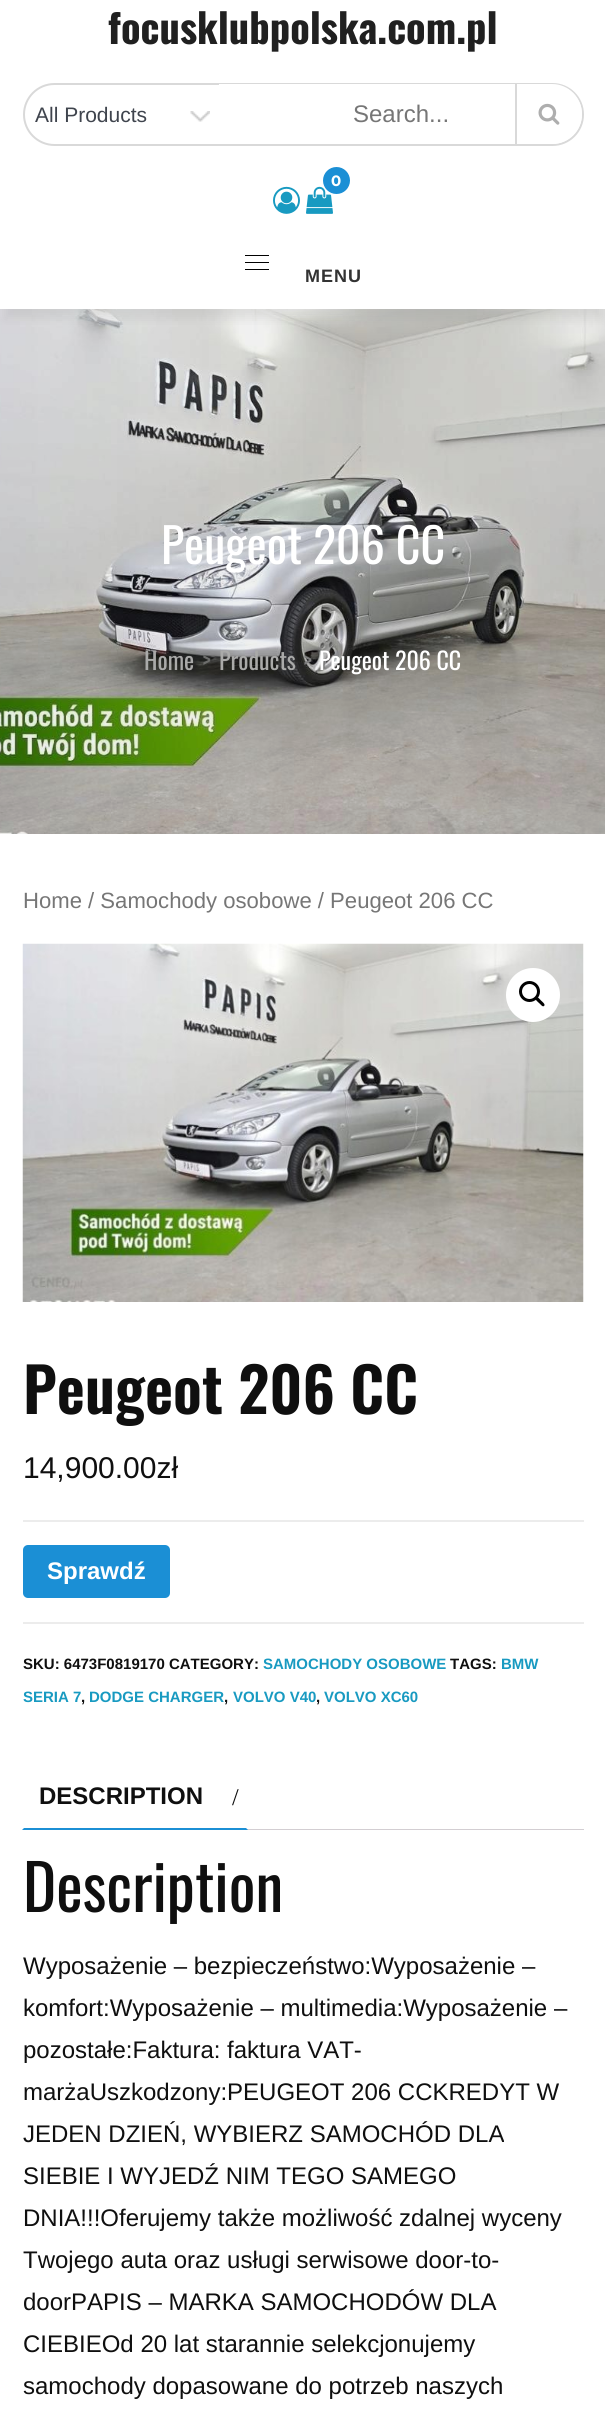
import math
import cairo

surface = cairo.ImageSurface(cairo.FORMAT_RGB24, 605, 2421)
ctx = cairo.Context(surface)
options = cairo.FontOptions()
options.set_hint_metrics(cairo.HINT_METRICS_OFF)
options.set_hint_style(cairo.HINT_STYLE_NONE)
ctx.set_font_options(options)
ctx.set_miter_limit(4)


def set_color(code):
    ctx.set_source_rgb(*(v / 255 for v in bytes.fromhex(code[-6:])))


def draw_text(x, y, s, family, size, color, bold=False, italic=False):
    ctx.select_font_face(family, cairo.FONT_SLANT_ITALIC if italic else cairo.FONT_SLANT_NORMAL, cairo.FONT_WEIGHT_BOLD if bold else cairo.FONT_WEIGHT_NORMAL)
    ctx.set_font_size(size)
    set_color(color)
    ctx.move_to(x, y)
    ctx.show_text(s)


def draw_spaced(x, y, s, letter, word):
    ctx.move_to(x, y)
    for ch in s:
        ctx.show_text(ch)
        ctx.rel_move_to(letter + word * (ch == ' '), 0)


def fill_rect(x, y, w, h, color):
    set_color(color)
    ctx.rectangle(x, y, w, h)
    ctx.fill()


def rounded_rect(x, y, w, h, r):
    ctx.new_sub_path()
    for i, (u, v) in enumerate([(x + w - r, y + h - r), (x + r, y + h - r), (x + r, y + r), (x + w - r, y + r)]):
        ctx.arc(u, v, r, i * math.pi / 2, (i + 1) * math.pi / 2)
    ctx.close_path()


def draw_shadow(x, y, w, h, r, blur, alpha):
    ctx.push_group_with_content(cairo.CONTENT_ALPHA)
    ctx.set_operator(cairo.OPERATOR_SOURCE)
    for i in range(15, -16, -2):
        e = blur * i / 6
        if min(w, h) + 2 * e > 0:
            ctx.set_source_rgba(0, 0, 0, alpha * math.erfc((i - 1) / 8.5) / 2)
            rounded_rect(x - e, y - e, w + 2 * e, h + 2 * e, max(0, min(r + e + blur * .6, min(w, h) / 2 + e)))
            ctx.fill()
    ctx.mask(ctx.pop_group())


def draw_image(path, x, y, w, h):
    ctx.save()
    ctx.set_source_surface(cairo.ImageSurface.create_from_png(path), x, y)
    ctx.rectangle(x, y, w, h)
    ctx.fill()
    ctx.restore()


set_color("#ffffff")
ctx.paint()
draw_image("assets/img5.png", 0, 309, 605, 525)
ctx.save()
ctx.rectangle(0, 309, 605, 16)
ctx.clip()
set_color("#828282")
draw_shadow(5, 18, 597, 300, 0, 6, 0.18)
ctx.restore()
draw_text(108, 44, "focusklubpolska.com.pl", "Oswald", 40.5, "#202020", bold=True)
rounded_rect(24, 84, 559, 61, 30.5)
set_color("#d9d9d9")
ctx.stroke()
draw_image("assets/img1.png", 190, 111, 20, 11)
draw_text(35, 122, "All Products", "Liberation Sans", 21, "#3f444d")
set_color("#ffffff")
ctx.new_path()
ctx.move_to(219, 84)
ctx.line_to(552, 84)
ctx.curve_to(568.5, 84, 582, 97.5, 582, 114)
ctx.curve_to(582, 130.5, 568.5, 144, 552, 144)
ctx.line_to(219, 144)
ctx.close_path()
ctx.fill()
draw_text(353, 122, "Search...", "Liberation Sans", 24, "#767676")
fill_rect(515, 84, 2, 60, "#d9d9d9")
draw_image("assets/img2.png", 538, 103, 22, 22)
draw_image("assets/img3.png", 306, 186, 27, 28)
set_color("#1b8fd5")
ctx.arc(336.5, 180.5, 13.5, 0, 2 * math.pi)
ctx.fill()
draw_text(331, 186, "0", "Montserrat", 15, "#ffffff", bold=True)
draw_image("assets/img4.png", 273, 186, 27, 28)
fill_rect(245, 255, 24, 1, "#000000")
fill_rect(245, 262, 24, 1, "#000000")
fill_rect(245, 269, 24, 1, "#000000")
ctx.select_font_face("Liberation Sans", cairo.FONT_SLANT_NORMAL, cairo.FONT_WEIGHT_BOLD)
ctx.set_font_size(18)
set_color("#333333")
draw_spaced(305, 282, "MENU", 1, 0)
draw_text(161, 564, "Peugeot 206 CC", "Oswald", 48, "#ffffff")
draw_text(144, 670, "Home", "Oswald", 24, "#aaaaa9")
draw_text(202, 670, ">", "Oswald", 24, "#6d6e6c")
draw_text(219, 670, "Products", "Oswald", 24, "#aaaaa9")
draw_text(303, 670, ">", "Oswald", 24, "#7d7d7d")
draw_text(319, 670, "Peugeot 206 CC", "Oswald", 24, "#ffffff")
draw_text(23, 908, "Home / Samochody osobowe / Peugeot 206 CC", "Liberation Sans", 22.1, "#767676")
draw_image("assets/img6.png", 22, 943, 562, 359)
set_color("#ffffff")
ctx.arc(533, 995, 27, 0, 2 * math.pi)
ctx.fill()
ctx.arc(529.5, 991.5, 9, 0, 2 * math.pi)
set_color("#000000")
ctx.set_line_width(3)
ctx.stroke()
ctx.new_path()
ctx.move_to(536, 997.5)
ctx.curve_to(537.5, 996, 540, 999.5, 541, 1000.5)
ctx.curve_to(542, 1001.5, 546, 1004.5, 544, 1006)
ctx.curve_to(542.5, 1007.5, 540, 1003.5, 539, 1003)
ctx.curve_to(538, 1002, 534, 999, 536, 997.5)
ctx.close_path()
ctx.fill()
draw_text(23, 1414, "Peugeot 206 CC", "Oswald SemiBold", 61.25, "#0f0f0f")
draw_text(23, 1478, "14,900.00zł", "Liberation Sans", 30, "#0f0f0f")
fill_rect(23, 1520, 561, 2, "#ececec")
fill_rect(23, 1622, 561, 2, "#ececec")
set_color("#1b8fd5")
rounded_rect(23, 1545, 147, 53, 5)
ctx.fill()
draw_text(47, 1579, "Sprawdź", "Liberation Sans", 24, "#ffffff", bold=True)
draw_text(23, 1669, "SKU: 6473F0819170 CATEGORY:", "Liberation Sans", 15, "#0f0f0f", bold=True)
draw_text(263, 1669, "SAMOCHODY OSOBOWE", "Liberation Sans", 15, "#189ac1", bold=True)
draw_text(450, 1669, "TAGS:", "Liberation Sans", 15, "#0f0f0f", bold=True)
draw_text(501, 1669, "BMW", "Liberation Sans", 15, "#189ac1", bold=True)
draw_text(23, 1702, "SERIA 7", "Liberation Sans", 15, "#189ac1", bold=True)
draw_text(81, 1702, ",", "Liberation Sans", 15, "#0f0f0f", bold=True)
draw_text(89, 1702, "DODGE CHARGER", "Liberation Sans", 15, "#189ac1", bold=True)
draw_text(224, 1702, ",", "Liberation Sans", 15, "#0f0f0f", bold=True)
draw_text(233, 1702, "VOLVO V40", "Liberation Sans", 15, "#189ac1", bold=True)
draw_text(316, 1702, ",", "Liberation Sans", 15, "#0f0f0f", bold=True)
draw_text(324, 1702, "VOLVO XC60", "Liberation Sans", 15, "#189ac1", bold=True)
fill_rect(247, 1829, 337, 1, "#d3ced2")
set_color("#1b8fd5")
ctx.new_path()
ctx.move_to(248, 1830)
ctx.line_to(22, 1830)
ctx.line_to(24, 1828)
ctx.line_to(246, 1828)
ctx.close_path()
ctx.fill()
draw_text(39, 1804, "DESCRIPTION", "Liberation Sans", 24, "#0f0f0f", bold=True)
draw_text(232, 1805, "/", "Liberation Serif", 24, "#0f0f0f")
draw_text(23, 1912, "Description", "Oswald", 63, "#0f0f0f")
draw_text(23, 1974, "Wyposażenie – bezpieczeństwo:Wyposażenie –", "Liberation Sans", 24, "#0f0f0f")
draw_text(23, 2016, "komfort:Wyposażenie – multimedia:Wyposażenie –", "Liberation Sans", 24, "#0f0f0f")
draw_text(23, 2058, "pozostałe:Faktura: faktura VAT-", "Liberation Sans", 24, "#0f0f0f")
draw_text(23, 2100, "marżaUszkodzony:PEUGEOT 206 CCKREDYT W", "Liberation Sans", 24, "#0f0f0f")
draw_text(23, 2142, "JEDEN DZIEŃ, WYBIERZ SAMOCHÓD DLA", "Liberation Sans", 24, "#0f0f0f")
draw_text(23, 2184, "SIEBIE I WYJEDŹ NIM TEGO SAMEGO", "Liberation Sans", 24, "#0f0f0f")
draw_text(23, 2226, "DNIA!!!Oferujemy także możliwość zdalnej wyceny", "Liberation Sans", 24, "#0f0f0f")
draw_text(23, 2268, "Twojego auta oraz usługi serwisowe door-to-", "Liberation Sans", 24, "#0f0f0f")
draw_text(23, 2310, "doorPAPIS – MARKA SAMOCHODÓW DLA", "Liberation Sans", 24, "#0f0f0f")
draw_text(23, 2352, "CIEBIEOd 20 lat starannie selekcjonujemy", "Liberation Sans", 24, "#0f0f0f")
draw_text(23, 2394, "samochody dopasowane do potrzeb naszych", "Liberation Sans", 24, "#0f0f0f")
surface.write_to_png("output.png")
